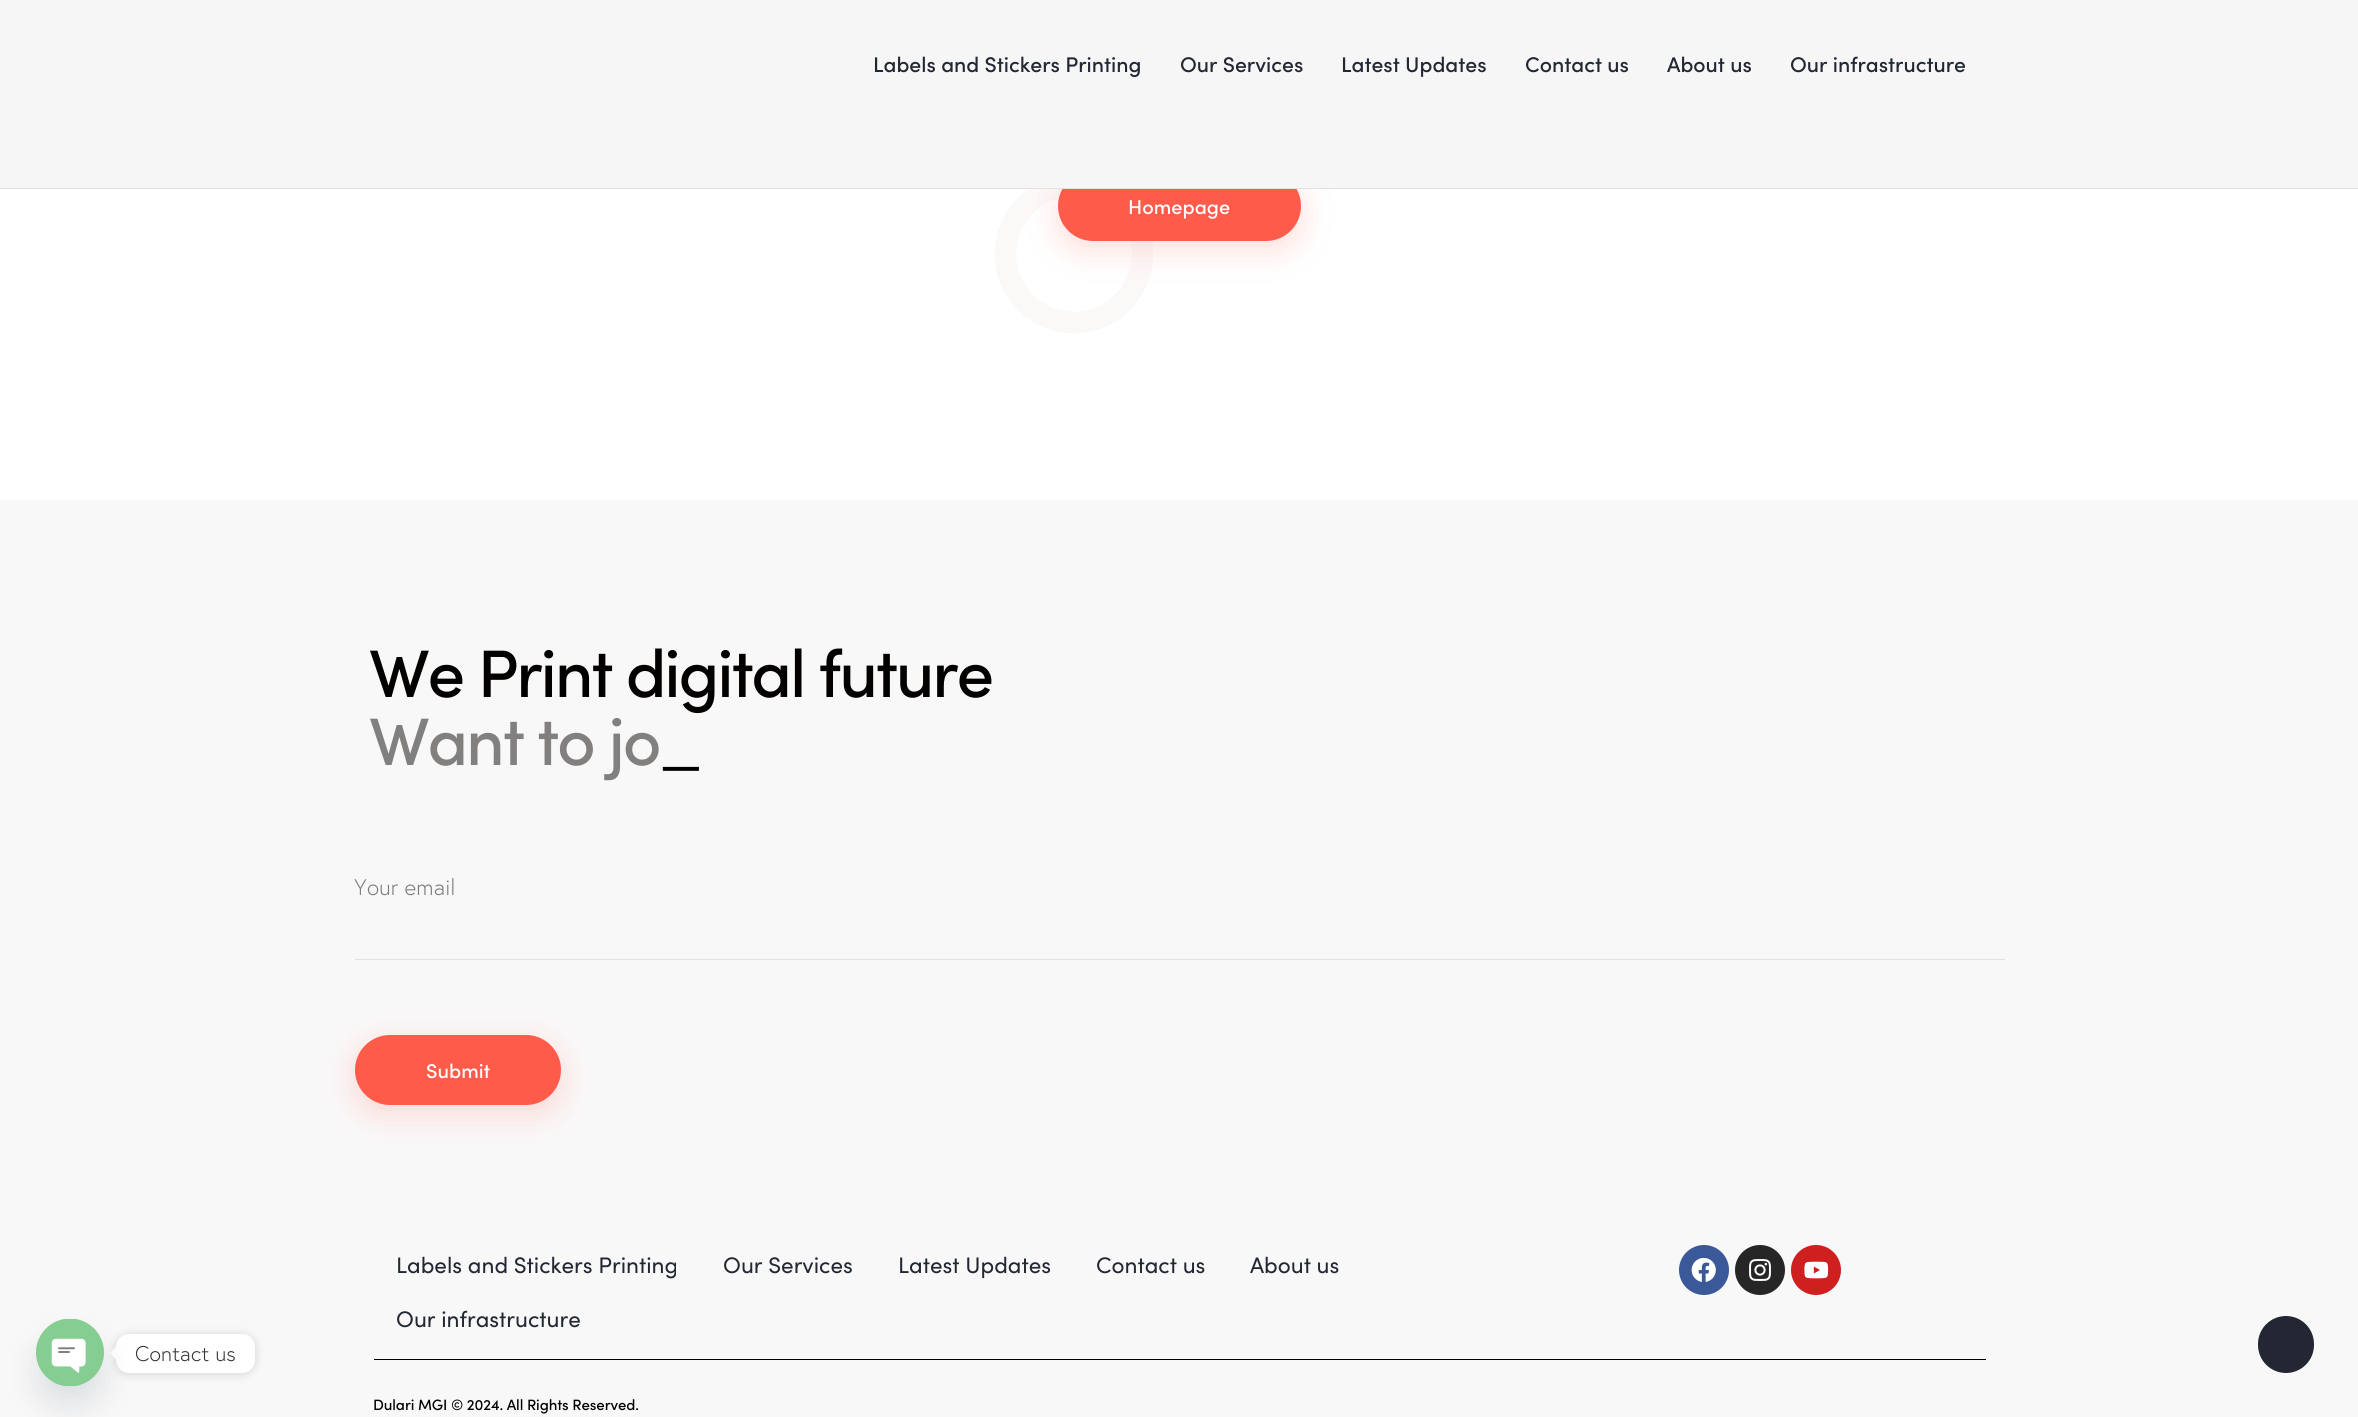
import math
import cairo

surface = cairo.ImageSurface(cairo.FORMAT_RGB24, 2358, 1417)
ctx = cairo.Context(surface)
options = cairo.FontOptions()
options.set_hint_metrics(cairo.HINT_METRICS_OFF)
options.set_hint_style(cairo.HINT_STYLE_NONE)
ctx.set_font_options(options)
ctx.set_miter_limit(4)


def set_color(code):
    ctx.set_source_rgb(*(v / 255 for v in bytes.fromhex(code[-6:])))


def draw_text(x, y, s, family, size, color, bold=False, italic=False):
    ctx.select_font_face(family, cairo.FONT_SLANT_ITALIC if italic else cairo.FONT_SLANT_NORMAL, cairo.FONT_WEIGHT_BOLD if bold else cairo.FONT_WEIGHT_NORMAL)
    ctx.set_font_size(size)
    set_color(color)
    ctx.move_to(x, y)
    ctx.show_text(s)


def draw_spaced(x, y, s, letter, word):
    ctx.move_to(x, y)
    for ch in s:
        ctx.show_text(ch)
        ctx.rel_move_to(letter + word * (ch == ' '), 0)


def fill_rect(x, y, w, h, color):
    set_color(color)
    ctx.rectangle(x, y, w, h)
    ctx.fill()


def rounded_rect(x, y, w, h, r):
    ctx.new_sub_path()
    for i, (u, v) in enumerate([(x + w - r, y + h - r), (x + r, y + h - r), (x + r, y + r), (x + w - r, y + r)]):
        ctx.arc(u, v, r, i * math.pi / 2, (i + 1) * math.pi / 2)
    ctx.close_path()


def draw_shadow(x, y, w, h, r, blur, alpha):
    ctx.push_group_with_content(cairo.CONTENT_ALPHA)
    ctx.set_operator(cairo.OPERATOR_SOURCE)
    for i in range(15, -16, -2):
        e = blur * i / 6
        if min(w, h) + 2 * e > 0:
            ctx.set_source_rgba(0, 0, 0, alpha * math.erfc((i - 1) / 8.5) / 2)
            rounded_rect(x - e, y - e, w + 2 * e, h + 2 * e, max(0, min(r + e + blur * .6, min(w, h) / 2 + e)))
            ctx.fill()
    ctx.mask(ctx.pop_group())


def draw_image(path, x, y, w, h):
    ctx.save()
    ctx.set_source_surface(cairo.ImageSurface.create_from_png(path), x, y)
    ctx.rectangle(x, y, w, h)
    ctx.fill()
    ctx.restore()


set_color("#ffffff")
ctx.paint()
fill_rect(0, 500, 2358, 917, "#f9f8f8")
set_color("#000000")
draw_shadow(116, 1335, 139, 39, 13, 5, 0.15)
set_color("#ffffff")
rounded_rect(116, 1334, 139, 39, 13)
ctx.fill()
ctx.new_path()
ctx.move_to(116, 1347)
ctx.line_to(116, 1359.5)
ctx.line_to(110, 1353)
ctx.close_path()
ctx.fill()
set_color("#49687e")
draw_shadow(36, 1339, 68, 67, 33.5, 15, 0.16)
draw_image("assets/img1.png", 36, 1319, 68, 67)
ctx.select_font_face("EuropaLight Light")
ctx.set_font_size(21.25)
set_color("#333333")
draw_spaced(135, 1361, "Contact us", 0.1, 0)
ctx.new_path()
ctx.arc(1074, 254, 68.5, 0, 2 * math.pi)
set_color("#fbf9f8")
ctx.set_line_width(21.6)
ctx.stroke()
set_color("#ff5b4a")
draw_shadow(1058, 180, 243, 70, 35, 15.5, 0.2)
set_color("#ff5b4a")
rounded_rect(1058, 171, 243, 70, 35)
ctx.fill()
fill_rect(0, 0, 2358, 188, "#f6f6f6")
fill_rect(0, 188, 2358, 1, "#e2e2e2")
draw_text(873, 72, "Labels and Stickers Printing", "Sofia Medium", 21.25, "#222733")
draw_text(1180, 72, "Our Services", "Sofia Medium", 21.25, "#222733")
draw_text(1341, 72, "Latest Updates", "Sofia Medium", 21.25, "#222733")
draw_text(1525, 72, "Contact us", "Sofia Medium", 21.25, "#222733")
draw_text(1667, 72, "About us", "Sofia Medium", 21.25, "#222733")
draw_text(1790, 72, "Our infrastructure", "Sofia Medium", 21.25, "#222733")
draw_text(1128, 214, "Homepage", "Sofia Medium", 20, "#ffffff")
ctx.set_font_size(67.25)
set_color("#030000")
draw_spaced(369, 697, "We Print digital future", -2.25, 0)
set_color("#827f7f")
draw_spaced(369, 765, "Want to jo", -2.25, 0)
ctx.select_font_face("Sofia Light")
set_color("#030000")
draw_spaced(660, 765, "_", -2.25, 0)
ctx.select_font_face("EuropaLight Light")
ctx.set_font_size(22.5)
set_color("#797c7f")
draw_spaced(354, 895, "Your email", 0.1, 0)
fill_rect(355, 959, 1650, 1, "#e2e2e2")
set_color("#ff5b4a")
draw_shadow(355, 1044, 206, 70, 35, 15.5, 0.2)
set_color("#ff5b4a")
rounded_rect(355, 1035, 206, 70, 35)
ctx.fill()
draw_text(426, 1078, "Submit", "Sofia Medium", 20, "#ffffff")
draw_text(396, 1273, "Labels and Stickers Printing", "Sofia", 22.5, "#222733")
draw_text(723, 1273, "Our Services", "Sofia", 22.5, "#222733")
draw_text(898, 1273, "Latest Updates", "Sofia", 22.5, "#222733")
draw_text(1096, 1273, "Contact us", "Sofia", 22.5, "#222733")
draw_text(1250, 1273, "About us", "Sofia", 22.5, "#222733")
draw_text(396, 1327, "Our infrastructure", "Sofia", 22.5, "#222733")
set_color("#3b5998")
ctx.new_path()
ctx.arc(1704, 1270, 25, 0, 2 * math.pi)
ctx.fill()
draw_image("assets/img2.png", 1691, 1258, 25, 24)
set_color("#262626")
ctx.arc(1760, 1270, 25, 0, 2 * math.pi)
ctx.fill()
draw_image("assets/img3.png", 1749, 1259, 22, 22)
set_color("#cd201f")
ctx.arc(1816, 1270, 25, 0, 2 * math.pi)
ctx.fill()
draw_image("assets/img4.png", 1804, 1261, 25, 18)
fill_rect(374, 1359, 1612, 1, "#000000")
ctx.select_font_face("Sofia Medium")
ctx.set_font_size(15)
set_color("#030000")
draw_spaced(373, 1410, "Dulari MGI © 2024. All Rights Reserved.", -0.1, 0)
set_color("#222733")
rounded_rect(2258, 1316, 56, 57, 28)
ctx.fill()
surface.write_to_png("output.png")
